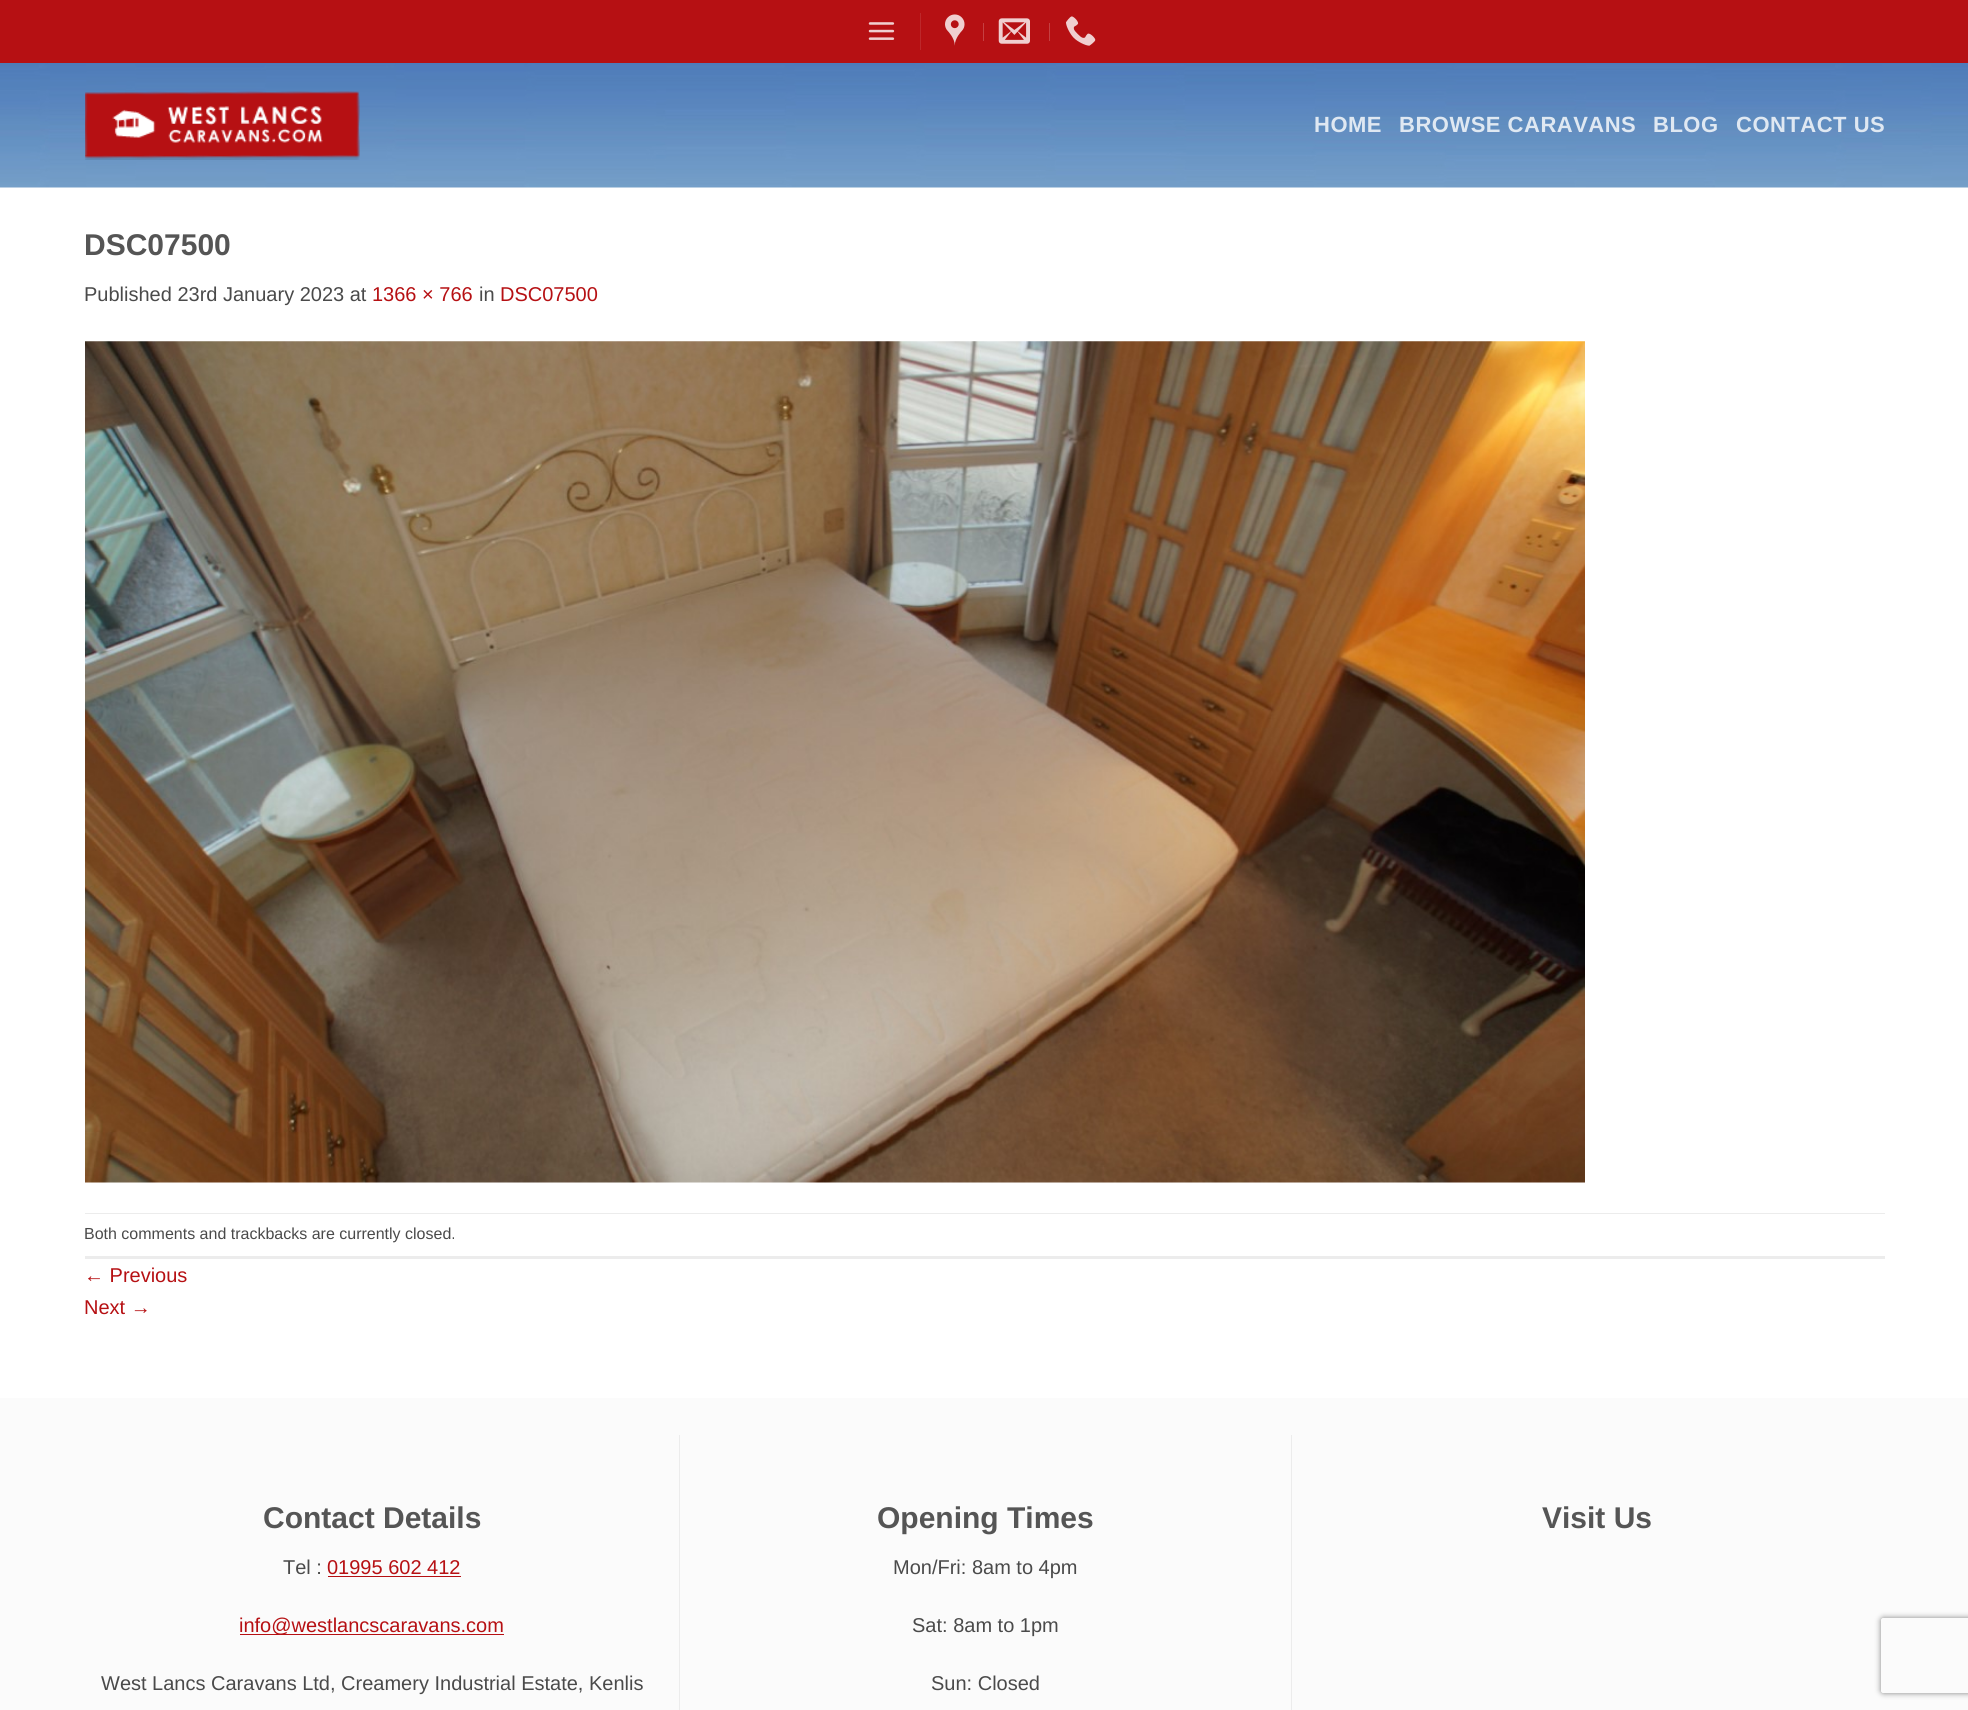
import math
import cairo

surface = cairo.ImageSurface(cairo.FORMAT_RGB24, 1968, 1710)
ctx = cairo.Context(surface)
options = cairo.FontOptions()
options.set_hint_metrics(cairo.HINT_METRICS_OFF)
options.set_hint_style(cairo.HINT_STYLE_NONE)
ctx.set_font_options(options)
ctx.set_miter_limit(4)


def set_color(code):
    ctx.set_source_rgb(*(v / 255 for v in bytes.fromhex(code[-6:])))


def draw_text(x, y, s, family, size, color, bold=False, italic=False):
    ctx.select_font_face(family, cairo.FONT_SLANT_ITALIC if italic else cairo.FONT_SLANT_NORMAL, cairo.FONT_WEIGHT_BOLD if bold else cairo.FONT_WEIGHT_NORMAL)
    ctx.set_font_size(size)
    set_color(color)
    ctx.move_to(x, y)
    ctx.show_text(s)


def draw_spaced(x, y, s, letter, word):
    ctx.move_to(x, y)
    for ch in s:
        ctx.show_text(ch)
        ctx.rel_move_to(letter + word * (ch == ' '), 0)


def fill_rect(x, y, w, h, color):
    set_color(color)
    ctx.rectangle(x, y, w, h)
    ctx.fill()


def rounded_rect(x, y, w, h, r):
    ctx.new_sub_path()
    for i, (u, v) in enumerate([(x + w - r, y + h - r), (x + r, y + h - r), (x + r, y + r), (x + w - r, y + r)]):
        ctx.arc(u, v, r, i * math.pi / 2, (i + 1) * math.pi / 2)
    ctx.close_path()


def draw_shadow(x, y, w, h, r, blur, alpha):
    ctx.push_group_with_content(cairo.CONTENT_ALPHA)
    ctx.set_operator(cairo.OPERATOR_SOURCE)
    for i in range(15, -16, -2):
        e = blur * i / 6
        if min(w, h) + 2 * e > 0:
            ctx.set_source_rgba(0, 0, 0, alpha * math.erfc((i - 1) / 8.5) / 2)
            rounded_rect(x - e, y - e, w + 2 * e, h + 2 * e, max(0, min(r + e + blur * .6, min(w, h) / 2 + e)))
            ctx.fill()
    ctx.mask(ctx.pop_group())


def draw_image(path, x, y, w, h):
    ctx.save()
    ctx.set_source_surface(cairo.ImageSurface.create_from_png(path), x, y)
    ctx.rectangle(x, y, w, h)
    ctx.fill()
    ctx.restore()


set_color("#ffffff")
ctx.paint()
fill_rect(0, 0, 1968, 63, "#b61013")
draw_image("assets/img1.png", 868, 22, 27, 18)
fill_rect(920, 13, 1, 37, "#bd282b")
draw_image("assets/img2.png", 945, 14, 20, 32)
fill_rect(983, 23, 1, 18, "#c54042")
draw_image("assets/img3.png", 998, 18, 32, 26)
fill_rect(1049, 23, 1, 18, "#c54042")
draw_image("assets/img4.png", 1066, 16, 30, 30)
draw_image("assets/img5.png", 0, 63, 1968, 125)
draw_image("assets/img6.png", 85, 91, 275, 69)
ctx.select_font_face("Liberation Sans", cairo.FONT_SLANT_NORMAL, cairo.FONT_WEIGHT_BOLD)
ctx.set_font_size(22)
set_color("#dfe8f2")
draw_spaced(1314, 132, "HOME", 0.5, 0)
draw_spaced(1399, 132, "BROWSE CARAVANS", 0.5, 0)
draw_spaced(1653, 132, "BLOG", 0.5, 0)
draw_spaced(1736, 132, "CONTACT US", 0.5, 0)
draw_text(84, 255, "DSC07500", "Liberation Sans", 30, "#555555", bold=True)
draw_text(84, 301, "Published 23rd January 2023 at", "Liberation Sans", 20, "#4a4a4a")
draw_text(372, 301, "1366 × 766", "Liberation Sans", 20, "#b61013")
draw_text(479, 301, "in", "Liberation Sans", 20, "#4a4a4a")
draw_text(500, 301, "DSC07500", "Liberation Sans", 20, "#b61013")
draw_image("assets/img7.png", 85, 341, 1500, 842)
fill_rect(85, 1213, 1800, 1, "#ececec")
fill_rect(85, 1256, 1800, 3, "#ececec")
draw_text(84, 1239, "Both comments and trackbacks are currently closed.", "Liberation Sans", 16, "#4a4a4a")
draw_text(84, 1282, "← Previous", "Liberation Sans", 20, "#b61013")
draw_text(84, 1314, "Next →", "Liberation Sans", 20, "#b61013")
fill_rect(0, 1398, 1968, 312, "#fbfbfb")
draw_text(263, 1528, "Contact Details", "Liberation Sans", 30, "#555555", bold=True)
draw_text(283, 1574, "Tel :", "Liberation Sans", 20, "#4a4a4a")
draw_text(327, 1574, "01995 602 412", "Liberation Sans", 20, "#b61013")
fill_rect(328, 1576, 133, 1, "#b61013")
fill_rect(240, 1634, 264, 1, "#b61013")
draw_text(239, 1632, "info@westlancscaravans.com", "Liberation Sans", 20, "#b61013")
draw_text(101, 1690, "West Lancs Caravans Ltd, Creamery Industrial Estate, Kenlis", "Liberation Sans", 20, "#4a4a4a")
fill_rect(679, 1435, 1, 275, "#ececec")
draw_text(877, 1528, "Opening Times", "Liberation Sans", 30, "#555555", bold=True)
draw_text(893, 1574, "Mon/Fri: 8am to 4pm", "Liberation Sans", 20, "#4a4a4a")
draw_text(912, 1632, "Sat: 8am to 1pm", "Liberation Sans", 20, "#4a4a4a")
draw_text(931, 1690, "Sun: Closed", "Liberation Sans", 20, "#4a4a4a")
fill_rect(1291, 1435, 1, 275, "#ececec")
draw_text(1542, 1528, "Visit Us", "Liberation Sans", 30, "#555555", bold=True)
ctx.save()
ctx.set_fill_rule(cairo.FILL_RULE_EVEN_ODD)
ctx.new_path()
ctx.move_to(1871, 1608)
ctx.line_to(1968, 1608)
ctx.line_to(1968, 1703)
ctx.line_to(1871, 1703)
ctx.close_path()
ctx.move_to(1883.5, 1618)
ctx.line_to(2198.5, 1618)
ctx.curve_to(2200, 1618, 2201, 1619, 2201, 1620.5)
ctx.line_to(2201, 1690.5)
ctx.curve_to(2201, 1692, 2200, 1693, 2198.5, 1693)
ctx.line_to(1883.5, 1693)
ctx.curve_to(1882, 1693, 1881, 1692, 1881, 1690.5)
ctx.line_to(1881, 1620.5)
ctx.curve_to(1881, 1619, 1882, 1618, 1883.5, 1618)
ctx.close_path()
ctx.clip()
set_color("#808080")
draw_shadow(1881, 1618, 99, 75, 2.5, 3, 1)
ctx.restore()
surface.write_to_png("output.png")
